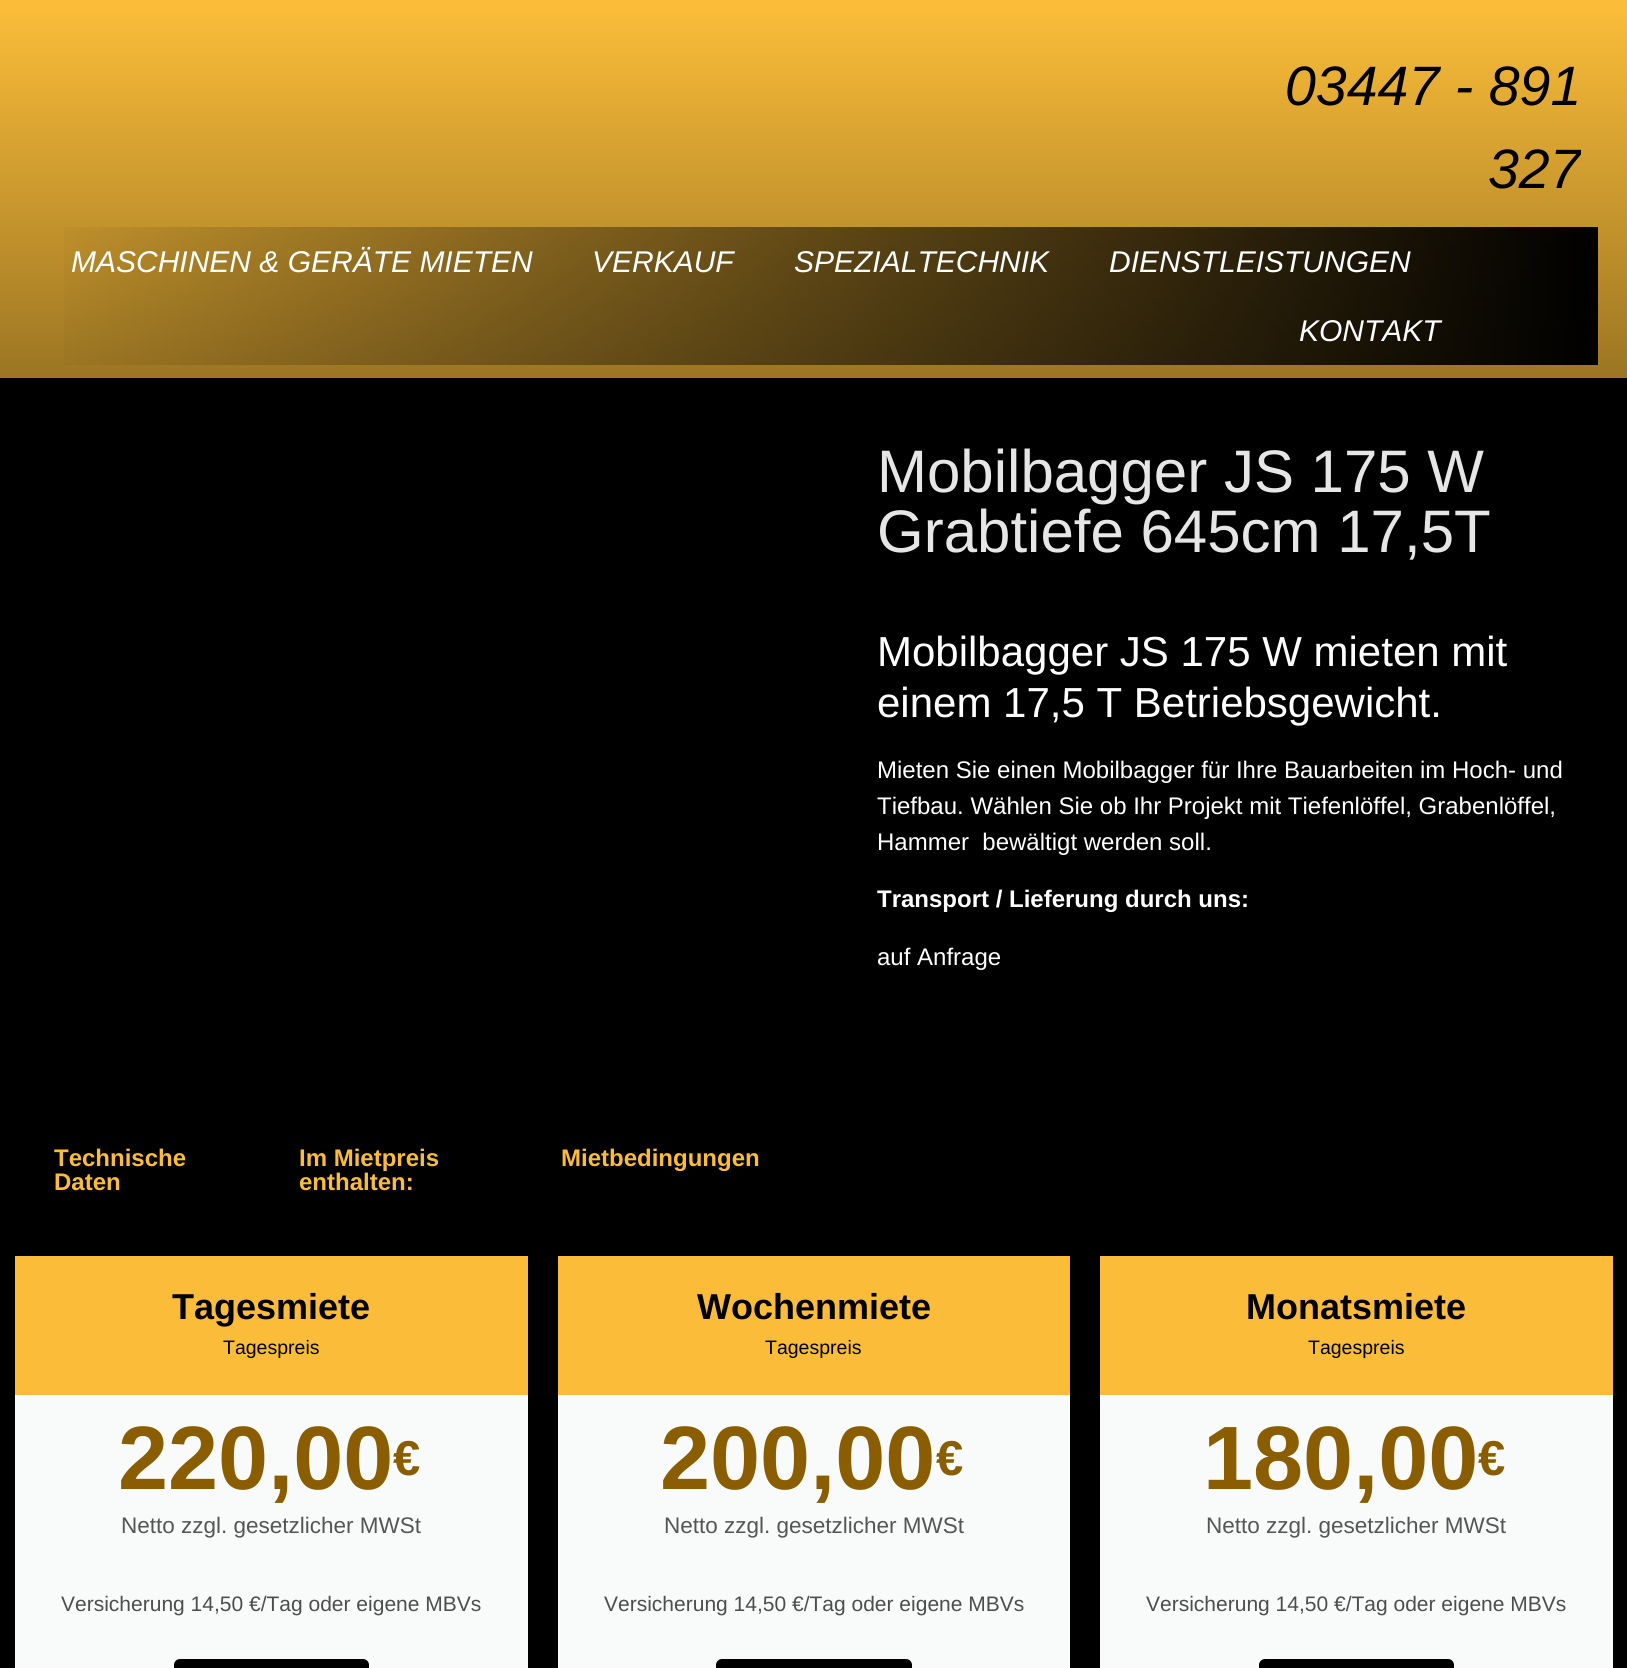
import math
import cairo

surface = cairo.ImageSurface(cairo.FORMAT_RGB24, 1627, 1668)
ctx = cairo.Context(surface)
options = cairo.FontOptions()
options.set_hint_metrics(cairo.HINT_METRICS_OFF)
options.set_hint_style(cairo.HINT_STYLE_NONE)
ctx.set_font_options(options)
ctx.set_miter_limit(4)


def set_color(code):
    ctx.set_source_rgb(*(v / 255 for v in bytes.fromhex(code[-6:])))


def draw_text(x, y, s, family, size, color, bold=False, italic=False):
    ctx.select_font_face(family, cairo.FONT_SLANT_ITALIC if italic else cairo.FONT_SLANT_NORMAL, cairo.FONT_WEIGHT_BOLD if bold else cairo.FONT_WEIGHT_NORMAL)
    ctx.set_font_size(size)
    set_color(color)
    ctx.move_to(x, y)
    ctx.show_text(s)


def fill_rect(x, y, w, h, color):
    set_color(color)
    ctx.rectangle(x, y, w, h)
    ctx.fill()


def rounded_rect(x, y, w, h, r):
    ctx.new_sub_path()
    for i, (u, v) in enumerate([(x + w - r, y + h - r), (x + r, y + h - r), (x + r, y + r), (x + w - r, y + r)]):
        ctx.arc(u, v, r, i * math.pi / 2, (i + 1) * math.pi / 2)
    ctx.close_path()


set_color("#ffffff")
ctx.paint()
gradient = cairo.LinearGradient(814, 0, 814, 695)
gradient.add_color_stop_rgba(0.01, 0.984, 0.741, 0.224, 1)
gradient.add_color_stop_rgba(0.87, 0.384, 0.29, 0.086, 1)
ctx.set_source(gradient)
ctx.rectangle(0, 0, 1627, 378)
ctx.fill()
draw_text(1285, 105, "03447 - 891", "Liberation Sans", 55.5, "#000000", italic=True)
ctx.save()
ctx.rectangle(1100, 45, 481, 167)
ctx.clip()
draw_text(1488, 188, "327", "Liberation Sans", 55.5, "#000000", italic=True)
ctx.restore()
gradient = cairo.LinearGradient(1598, 296, 30, 295)
gradient.add_color_stop_rgba(0, 0, 0, 0, 1)
gradient.add_color_stop_rgba(1, 0, 0, 0, 0)
ctx.set_source(gradient)
ctx.rectangle(64, 227, 1534, 138)
ctx.fill()
draw_text(71, 272, "MASCHINEN & GERÄTE MIETEN", "Liberation Sans", 30, "#ffffff", italic=True)
draw_text(592, 272, "VERKAUF", "Liberation Sans", 30, "#ffffff", italic=True)
draw_text(794, 272, "SPEZIALTECHNIK", "Liberation Sans", 30, "#ffffff", italic=True)
draw_text(1109, 272, "DIENSTLEISTUNGEN", "Liberation Sans", 30, "#ffffff", italic=True)
draw_text(1299, 341, "KONTAKT", "Liberation Sans", 30, "#ffffff", italic=True)
fill_rect(0, 378, 1627, 1290, "#000000")
draw_text(877, 492, "Mobilbagger JS 175 W", "Liberation Sans", 60, "#e6e6e6")
draw_text(877, 552, "Grabtiefe 645cm 17,5T", "Liberation Sans", 60, "#e6e6e6")
draw_text(877, 666, "Mobilbagger JS 175 W mieten mit", "Liberation Sans", 42, "#ffffff")
draw_text(877, 717, "einem 17,5 T Betriebsgewicht.", "Liberation Sans", 42, "#ffffff")
draw_text(877, 778, "Mieten Sie einen Mobilbagger für Ihre Bauarbeiten im Hoch- und", "Liberation Sans", 24, "#ffffff")
draw_text(877, 814, "Tiefbau. Wählen Sie ob Ihr Projekt mit Tiefenlöffel, Grabenlöffel,", "Liberation Sans", 24, "#ffffff")
draw_text(877, 850, "Hammer  bewältigt werden soll.", "Liberation Sans", 24, "#ffffff")
draw_text(877, 907, "Transport / Lieferung durch uns:", "Liberation Sans", 24, "#ffffff", bold=True)
draw_text(877, 965, "auf Anfrage", "Liberation Sans", 24, "#ffffff")
draw_text(54, 1166, "Technische", "Liberation Sans", 24, "#fbbd39", bold=True)
draw_text(54, 1190, "Daten", "Liberation Sans", 24, "#fbbd39", bold=True)
draw_text(299, 1166, "Im Mietpreis", "Liberation Sans", 24, "#fbbd39", bold=True)
draw_text(299, 1190, "enthalten:", "Liberation Sans", 24, "#fbbd39", bold=True)
draw_text(561, 1166, "Mietbedingungen", "Liberation Sans", 24, "#fbbd39", bold=True)
fill_rect(15, 1395, 513, 273, "#f9fafa")
fill_rect(15, 1256, 513, 139, "#fbbd39")
draw_text(172, 1319, "Tagesmiete", "Liberation Sans", 36, "#000000", bold=True)
draw_text(223, 1354, "Tagespreis", "Liberation Sans", 19.5, "#000000")
draw_text(118, 1489, "220,00", "Liberation Sans", 90, "#8a5e00", bold=True)
draw_text(393, 1475, "€", "Liberation Sans", 49, "#8a5e00", bold=True)
draw_text(121, 1533, "Netto zzgl. gesetzlicher MWSt", "Liberation Sans", 22.5, "#555555")
draw_text(61, 1611, "Versicherung 14,50 €/Tag oder eigene MBVs", "Liberation Sans", 21, "#4d4d4d")
set_color("#000000")
rounded_rect(174, 1659, 195, 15, 6)
ctx.fill()
fill_rect(558, 1395, 512, 273, "#f9fafa")
fill_rect(558, 1256, 512, 139, "#fbbd39")
draw_text(697, 1319, "Wochenmiete", "Liberation Sans", 36, "#000000", bold=True)
draw_text(765, 1354, "Tagespreis", "Liberation Sans", 19.5, "#000000")
draw_text(660, 1489, "200,00", "Liberation Sans", 90, "#8a5e00", bold=True)
draw_text(936, 1475, "€", "Liberation Sans", 49, "#8a5e00", bold=True)
draw_text(664, 1533, "Netto zzgl. gesetzlicher MWSt", "Liberation Sans", 22.5, "#555555")
draw_text(604, 1611, "Versicherung 14,50 €/Tag oder eigene MBVs", "Liberation Sans", 21, "#4d4d4d")
set_color("#000000")
rounded_rect(716, 1659, 196, 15, 6)
ctx.fill()
fill_rect(1100, 1395, 513, 273, "#f9fafa")
fill_rect(1100, 1256, 513, 139, "#fbbd39")
draw_text(1246, 1319, "Monatsmiete", "Liberation Sans", 36, "#000000", bold=True)
draw_text(1308, 1354, "Tagespreis", "Liberation Sans", 19.5, "#000000")
draw_text(1203, 1489, "180,00", "Liberation Sans", 90, "#8a5e00", bold=True)
draw_text(1478, 1475, "€", "Liberation Sans", 49, "#8a5e00", bold=True)
draw_text(1206, 1533, "Netto zzgl. gesetzlicher MWSt", "Liberation Sans", 22.5, "#555555")
draw_text(1146, 1611, "Versicherung 14,50 €/Tag oder eigene MBVs", "Liberation Sans", 21, "#4d4d4d")
set_color("#000000")
rounded_rect(1259, 1659, 195, 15, 6)
ctx.fill()
surface.write_to_png("output.png")
